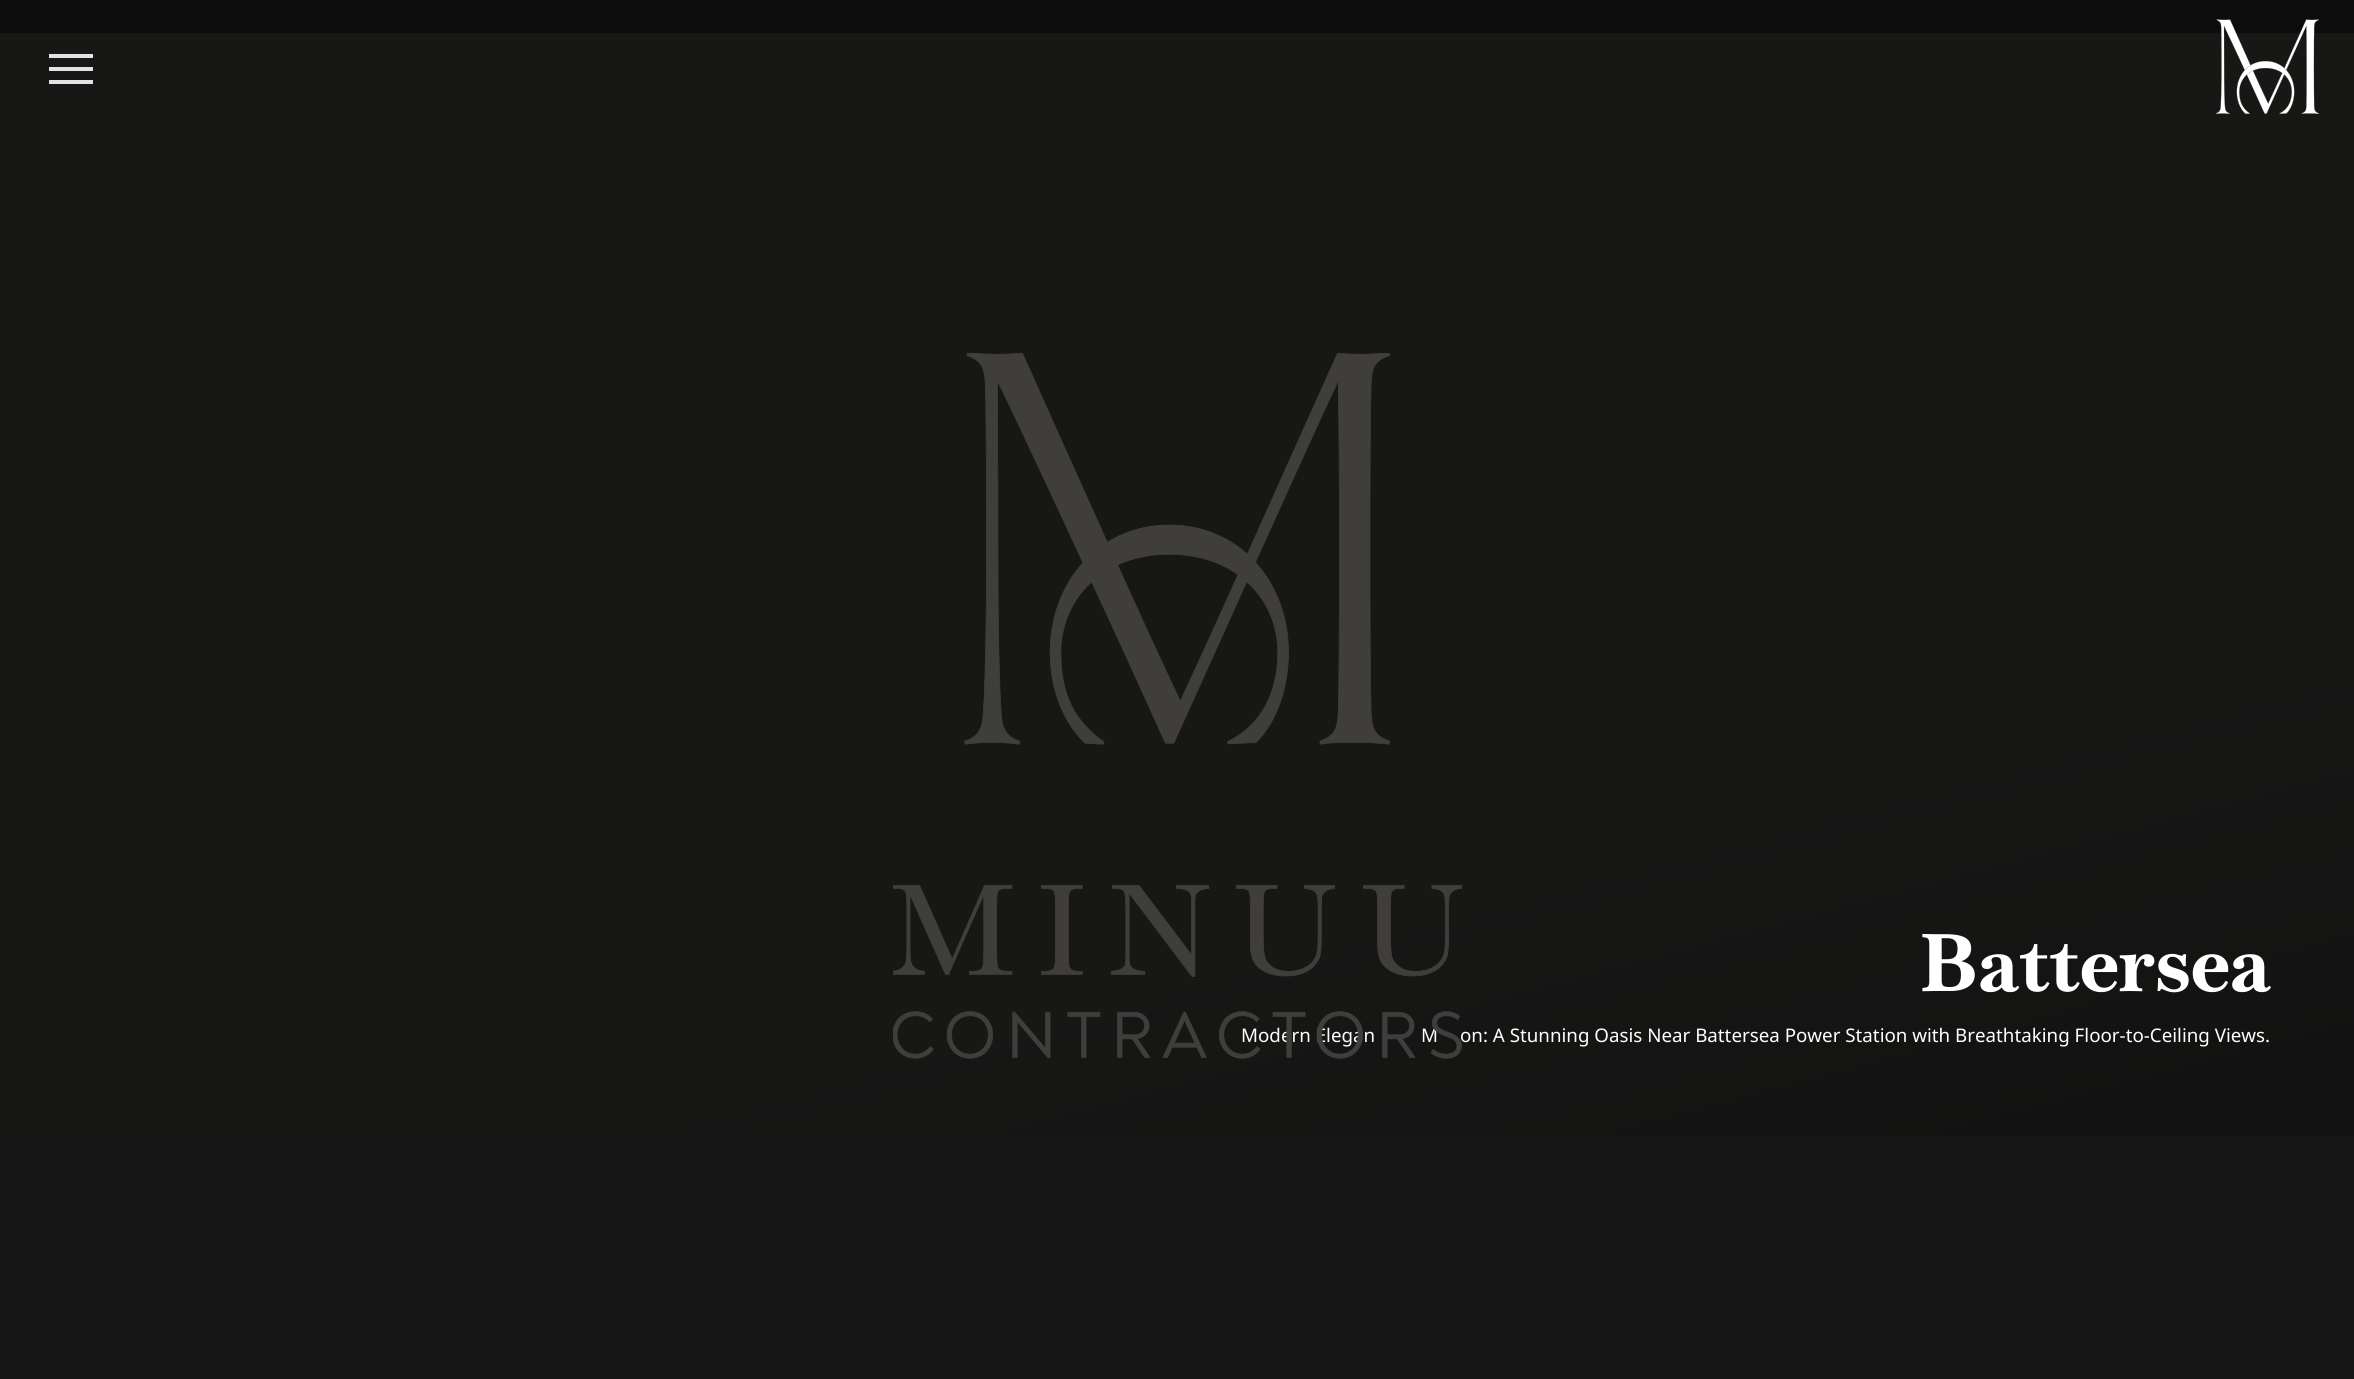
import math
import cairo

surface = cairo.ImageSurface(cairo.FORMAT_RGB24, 2354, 1379)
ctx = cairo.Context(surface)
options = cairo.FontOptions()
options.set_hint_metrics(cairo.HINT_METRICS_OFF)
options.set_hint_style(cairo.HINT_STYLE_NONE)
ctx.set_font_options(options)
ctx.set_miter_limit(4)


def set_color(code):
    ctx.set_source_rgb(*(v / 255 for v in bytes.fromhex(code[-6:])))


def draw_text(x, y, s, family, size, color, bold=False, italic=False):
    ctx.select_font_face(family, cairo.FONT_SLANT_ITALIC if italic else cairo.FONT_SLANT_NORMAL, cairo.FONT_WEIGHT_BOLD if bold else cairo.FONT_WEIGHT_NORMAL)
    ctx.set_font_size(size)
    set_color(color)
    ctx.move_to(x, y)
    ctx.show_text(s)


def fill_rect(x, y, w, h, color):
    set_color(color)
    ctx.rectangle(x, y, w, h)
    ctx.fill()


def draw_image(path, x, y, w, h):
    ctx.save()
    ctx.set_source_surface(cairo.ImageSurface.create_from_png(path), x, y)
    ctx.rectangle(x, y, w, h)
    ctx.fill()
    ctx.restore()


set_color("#0c0c0c")
ctx.paint()
gradient = cairo.LinearGradient(961, -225, 1394, 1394)
gradient.add_color_stop_rgba(0.72, 0.09, 0.09, 0.086, 1)
gradient.add_color_stop_rgba(1, 0.071, 0.067, 0.067, 1)
ctx.set_source(gradient)
ctx.rectangle(0, 33, 2354, 1103)
ctx.fill()
fill_rect(49, 54, 44, 4, "#e2e2e2")
fill_rect(49, 67, 44, 4, "#e2e2e2")
fill_rect(49, 80, 44, 4, "#e2e2e2")
draw_image("assets/img1.png", 2216, 19, 103, 95)
draw_text(1241, 1042, "Modern Elegan", "Noto Sans", 18.75, "#ffffff")
draw_text(1421, 1042, "M", "Noto Sans", 18.75, "#ffffff")
draw_text(1460, 1042, "on: A Stunning Oasis Near Battersea Power Station with Breathtaking Floor-to-Ceiling Views.", "Noto Sans", 18.75, "#ffffff")
draw_image("assets/img2.png", 893, 353, 569, 706)
draw_text(1920, 991, "Battersea", "Baskervville", 80, "#ffffff", bold=True)
fill_rect(0, 1136, 2354, 243, "#161616")
surface.write_to_png("output.png")
